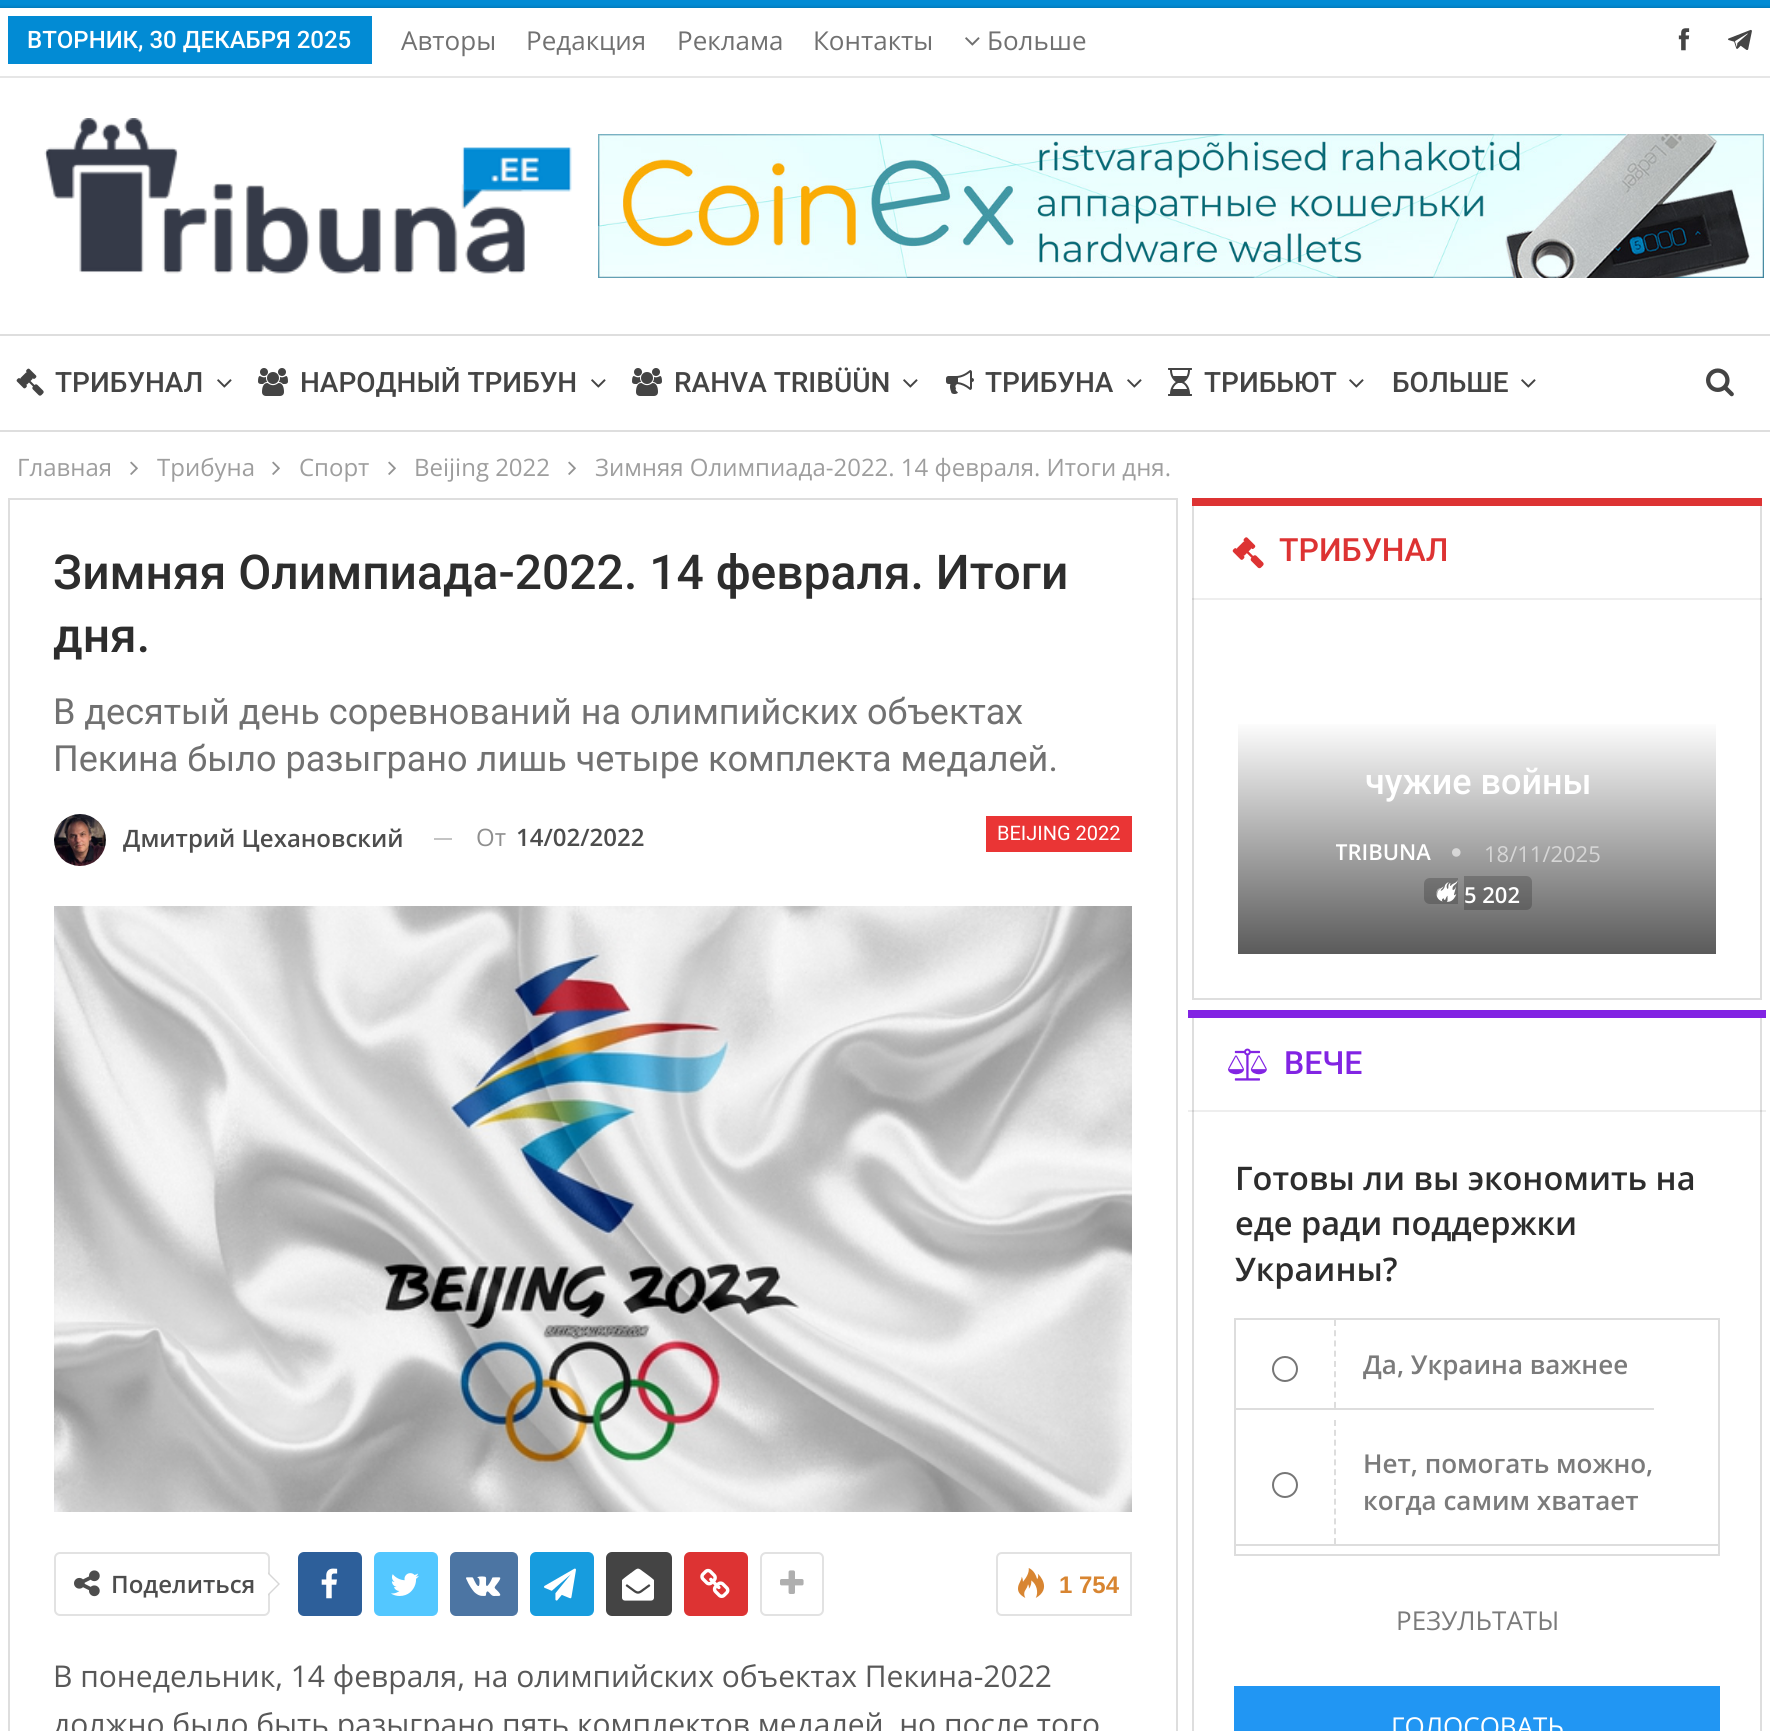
import math
import cairo

surface = cairo.ImageSurface(cairo.FORMAT_RGB24, 1770, 1731)
ctx = cairo.Context(surface)
options = cairo.FontOptions()
options.set_hint_metrics(cairo.HINT_METRICS_OFF)
options.set_hint_style(cairo.HINT_STYLE_NONE)
ctx.set_font_options(options)
ctx.set_miter_limit(4)


def set_color(code):
    ctx.set_source_rgb(*(v / 255 for v in bytes.fromhex(code[-6:])))


def draw_text(x, y, s, family, size, color, bold=False, italic=False):
    ctx.select_font_face(family, cairo.FONT_SLANT_ITALIC if italic else cairo.FONT_SLANT_NORMAL, cairo.FONT_WEIGHT_BOLD if bold else cairo.FONT_WEIGHT_NORMAL)
    ctx.set_font_size(size)
    set_color(color)
    ctx.move_to(x, y)
    ctx.show_text(s)


def fill_rect(x, y, w, h, color):
    set_color(color)
    ctx.rectangle(x, y, w, h)
    ctx.fill()


def rounded_rect(x, y, w, h, r):
    ctx.new_sub_path()
    for i, (u, v) in enumerate([(x + w - r, y + h - r), (x + r, y + h - r), (x + r, y + r), (x + w - r, y + r)]):
        ctx.arc(u, v, r, i * math.pi / 2, (i + 1) * math.pi / 2)
    ctx.close_path()


def draw_shadow(x, y, w, h, r, blur, alpha):
    ctx.push_group_with_content(cairo.CONTENT_ALPHA)
    ctx.set_operator(cairo.OPERATOR_SOURCE)
    for i in range(15, -16, -2):
        e = blur * i / 6
        if min(w, h) + 2 * e > 0:
            ctx.set_source_rgba(0, 0, 0, alpha * math.erfc((i - 1) / 8.5) / 2)
            rounded_rect(x - e, y - e, w + 2 * e, h + 2 * e, max(0, min(r + e + blur * .6, min(w, h) / 2 + e)))
            ctx.fill()
    ctx.mask(ctx.pop_group())


def draw_image(path, x, y, w, h):
    ctx.save()
    ctx.set_source_surface(cairo.ImageSurface.create_from_png(path), x, y)
    ctx.rectangle(x, y, w, h)
    ctx.fill()
    ctx.restore()


set_color("#028bd4")
ctx.paint()
set_color("#000000")
draw_shadow(0, 8, 1770, 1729, 0, 2, 0.27)
fill_rect(0, 8, 1770, 1723, "#ffffff")
fill_rect(0, 76, 1770, 2, "#e6e6e6")
fill_rect(8, 16, 364, 48, "#028bd4")
draw_text(27, 48, "ВТОРНИК, 30 ДЕКАБРЯ 2025", "Roboto Medium", 24, "#ffffff")
draw_text(401, 50, "Авторы", "Open Sans", 26, "#717171")
draw_text(526, 50, "Редакция", "Open Sans", 26, "#717171")
draw_text(677, 50, "Реклама", "Open Sans", 26, "#717171")
draw_text(813, 50, "Контакты", "Open Sans", 26, "#717171")
draw_image("assets/img1.png", 965, 37, 15, 9)
draw_text(987, 50, "Больше", "Open Sans", 26, "#717171")
draw_image("assets/img2.png", 1678, 28, 12, 23)
draw_image("assets/img3.png", 1728, 29, 24, 21)
draw_image("assets/img4.png", 44, 118, 528, 156)
draw_image("assets/img5.png", 598, 134, 1166, 144)
fill_rect(0, 334, 1770, 2, "#dedede")
fill_rect(0, 430, 1770, 2, "#dedede")
draw_image("assets/img6.png", 16, 368, 28, 28)
draw_text(55, 392, "ТРИБУНАЛ", "Roboto Medium", 28, "#444444")
draw_image("assets/img7.png", 217, 379, 15, 9)
draw_image("assets/img8.png", 258, 368, 30, 28)
draw_text(300, 392, "НАРОДНЫЙ ТРИБУН", "Roboto Medium", 28, "#444444")
draw_image("assets/img7.png", 591, 379, 15, 9)
draw_image("assets/img8.png", 632, 368, 30, 28)
draw_text(674, 392, "RAHVA TRIBÜÜN", "Roboto Medium", 28, "#444444")
draw_image("assets/img7.png", 903, 379, 15, 9)
draw_image("assets/img9.png", 946, 370, 28, 24)
draw_text(985, 392, "ТРИБУНА", "Roboto Medium", 28, "#444444")
draw_image("assets/img7.png", 1127, 379, 15, 9)
draw_image("assets/img10.png", 1168, 368, 24, 28)
draw_text(1204, 392, "ТРИБЬЮТ", "Roboto Medium", 28, "#444444")
draw_image("assets/img7.png", 1349, 379, 15, 9)
draw_text(1392, 392, "БОЛЬШЕ", "Roboto Medium", 28, "#444444")
draw_image("assets/img7.png", 1521, 379, 15, 9)
draw_image("assets/img11.png", 1706, 368, 28, 29)
draw_text(17, 476, "Главная", "Open Sans", 24, "#9e9e9e")
draw_image("assets/img12.png", 130, 461, 8, 14)
draw_text(157, 476, "Трибуна", "Open Sans", 24, "#9e9e9e")
draw_image("assets/img12.png", 272, 461, 8, 14)
draw_text(299, 476, "Спорт", "Open Sans", 24, "#9e9e9e")
draw_image("assets/img12.png", 388, 461, 8, 14)
draw_text(414, 476, "Beijing 2022", "Open Sans", 24, "#9e9e9e")
draw_image("assets/img12.png", 568, 461, 8, 14)
draw_text(595, 476, "Зимняя Олимпиада-2022. 14 февраля. Итоги дня.", "Open Sans", 24, "#9e9e9e")
ctx.rectangle(9, 499, 1168, 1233)
set_color("#dedede")
ctx.stroke()
draw_text(53, 589, "Зимняя Олимпиада-2022. 14 февраля. Итоги", "Roboto Medium", 48, "#2d2d2d")
draw_text(53, 652, "дня.", "Roboto Medium", 48, "#2d2d2d")
draw_text(53, 724, "В десятый день соревнований на олимпийских объектах", "Roboto", 36, "#717171")
draw_text(53, 771, "Пекина было разыграно лишь четыре комплекта медалей.", "Roboto", 36, "#717171")
draw_image("assets/img13.png", 54, 814, 52, 52)
draw_text(123, 847, "Дмитрий Цехановский", "Open Sans SemiBold", 24, "#4d4d4d")
fill_rect(434, 838, 18, 2, "#c4c4c4")
draw_text(476, 846, "От", "Open Sans", 24, "#8f8f8f")
draw_text(516, 846, "14/02/2022", "Open Sans SemiBold", 24, "#4d4d4d")
fill_rect(986, 816, 146, 36, "#ea3535")
draw_text(997, 840, "BEIJING 2022", "Roboto", 20, "#ffffff")
draw_image("assets/img14.png", 54, 906, 1078, 606)
rounded_rect(55, 1553, 214, 62, 5)
set_color("#e2e2e2")
ctx.stroke()
draw_image("assets/img15.png", 74, 1570, 26, 27)
set_color("#d7d7d7")
ctx.new_path()
ctx.move_to(268, 1596)
ctx.line_to(268, 1572)
ctx.line_to(280, 1584)
ctx.close_path()
ctx.fill()
draw_text(111, 1593, "Поделиться", "Open Sans SemiBold", 24, "#4d4d4d")
set_color("#ffffff")
ctx.new_path()
ctx.move_to(268, 1594)
ctx.line_to(268, 1574)
ctx.line_to(278, 1584)
ctx.close_path()
ctx.fill()
ctx.save()
rounded_rect(298, 1552, 64, 64, 6)
ctx.clip()
fill_rect(298, 1554, 62, 60, "#2d5f9a")
fill_rect(298, 1552, 64, 2, "#2d5f9a")
fill_rect(360, 1552, 2, 64, "#2d5f9a")
fill_rect(298, 1614, 64, 2, "#2d5f9a")
ctx.restore()
draw_image("assets/img16.png", 321, 1568, 17, 31)
ctx.save()
rounded_rect(374, 1552, 64, 64, 6)
ctx.clip()
fill_rect(374, 1554, 62, 60, "#53c7ff")
fill_rect(374, 1552, 64, 2, "#53c7ff")
fill_rect(436, 1552, 2, 64, "#53c7ff")
fill_rect(374, 1614, 64, 2, "#53c7ff")
ctx.restore()
draw_image("assets/img17.png", 391, 1573, 28, 23)
ctx.save()
rounded_rect(450, 1552, 68, 64, 6)
ctx.clip()
fill_rect(450, 1554, 66, 60, "#4c75a3")
fill_rect(450, 1552, 68, 2, "#4c75a3")
fill_rect(516, 1552, 2, 64, "#4c75a3")
fill_rect(450, 1614, 68, 2, "#4c75a3")
ctx.restore()
draw_image("assets/img18.png", 466, 1576, 35, 20)
ctx.save()
rounded_rect(530, 1552, 64, 64, 6)
ctx.clip()
fill_rect(530, 1554, 62, 60, "#179cde")
fill_rect(530, 1552, 64, 2, "#179cde")
fill_rect(592, 1552, 2, 64, "#179cde")
fill_rect(530, 1614, 64, 2, "#179cde")
ctx.restore()
draw_image("assets/img19.png", 544, 1568, 32, 33)
ctx.save()
rounded_rect(606, 1552, 66, 64, 6)
ctx.clip()
fill_rect(606, 1554, 64, 60, "#444444")
fill_rect(606, 1552, 66, 2, "#444444")
fill_rect(670, 1552, 2, 64, "#444444")
fill_rect(606, 1614, 66, 2, "#444444")
ctx.restore()
draw_image("assets/img20.png", 622, 1568, 32, 33)
ctx.save()
rounded_rect(684, 1552, 64, 64, 6)
ctx.clip()
fill_rect(684, 1554, 62, 60, "#dd3333")
fill_rect(684, 1552, 64, 2, "#dd3333")
fill_rect(746, 1552, 2, 64, "#dd3333")
fill_rect(684, 1614, 64, 2, "#dd3333")
ctx.restore()
draw_image("assets/img21.png", 700, 1568, 30, 30)
rounded_rect(761, 1553, 62, 62, 5)
set_color("#e2e2e2")
ctx.stroke()
draw_image("assets/img22.png", 780, 1570, 24, 24)
ctx.new_path()
ctx.move_to(1002, 1553)
ctx.line_to(1131, 1553)
ctx.line_to(1131, 1615)
ctx.line_to(1002, 1615)
ctx.curve_to(999, 1615, 997, 1613, 997, 1610)
ctx.line_to(997, 1558)
ctx.curve_to(997, 1555, 999, 1553, 1002, 1553)
ctx.close_path()
ctx.stroke()
draw_image("assets/img23.png", 1018, 1568, 27, 30)
draw_text(1059, 1593, "1 754", "Liberation Sans", 24, "#d88531", bold=True)
draw_text(53, 1687, "В понедельник, 14 февраля, на олимпийских объектах Пекина-2022", "Open Sans", 30, "#585858")
draw_text(53, 1735, "должно было быть разыграно пять комплектов медалей, но после того", "Open Sans", 30, "#585858")
ctx.rectangle(1193, 499, 568, 500)
set_color("#dedede")
ctx.stroke()
fill_rect(1192, 498, 570, 8, "#dd3333")
draw_image("assets/img24.png", 1232, 537, 32, 32)
draw_text(1279, 561, "ТРИБУНАЛ", "Roboto Medium", 32, "#dd3333")
ctx.set_source_rgba(0, 0, 0, 0.07)
ctx.rectangle(1192, 598, 570, 2)
ctx.fill()
gradient = cairo.LinearGradient(1477, 720, 1477, 956)
gradient.add_color_stop_rgba(0, 1, 1, 1, 1)
gradient.add_color_stop_rgba(1, 0.349, 0.349, 0.349, 1)
ctx.set_source(gradient)
ctx.rectangle(1238, 724, 478, 230)
ctx.fill()
draw_text(1365, 794, "чужие войны", "Roboto Medium", 36, "#ffffff")
ctx.save()
ctx.rectangle(1336, 834, 126, 38)
ctx.clip()
draw_text(1335, 860, "TRIBUNA", "Open Sans SemiBold", 22, "#ffffff")
ctx.restore()
draw_image("assets/img25.png", 1452, 848, 9, 9)
draw_text(1484, 862, "18/11/2025", "Open Sans", 22, "#d6d6d6")
ctx.set_source_rgba(0, 0, 0, 0.2)
ctx.new_path()
ctx.move_to(1430, 878)
ctx.line_to(1458, 878)
ctx.line_to(1458, 904)
ctx.line_to(1430, 904)
ctx.curve_to(1426.5, 904, 1424, 901.5, 1424, 898)
ctx.line_to(1424, 884)
ctx.curve_to(1424, 880.5, 1426.5, 878, 1430, 878)
ctx.close_path()
ctx.fill()
ctx.new_path()
ctx.move_to(1464, 876)
ctx.line_to(1526, 876)
ctx.curve_to(1529.5, 876, 1532, 878.5, 1532, 882)
ctx.line_to(1532, 904)
ctx.curve_to(1532, 907.5, 1529.5, 910, 1526, 910)
ctx.line_to(1464, 910)
ctx.close_path()
ctx.fill()
draw_image("assets/img26.png", 1436, 880, 22, 22)
draw_text(1464, 903, "5 202", "Open Sans SemiBold", 22, "#ffffff")
ctx.rectangle(1193, 1015, 568, 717)
set_color("#dedede")
ctx.stroke()
fill_rect(1188, 1010, 578, 8, "#8224e3")
draw_image("assets/img27.png", 1228, 1048, 39, 33)
draw_text(1284, 1074, "ВЕЧЕ", "Roboto Medium", 32, "#8224e3")
ctx.set_source_rgba(0, 0, 0, 0.07)
ctx.rectangle(1188, 1110, 578, 2)
ctx.fill()
draw_text(1235, 1190, "Готовы ли вы экономить на", "Open Sans SemiBold", 32.5, "#2d2d2d")
draw_text(1235, 1235, "еде ради поддержки", "Open Sans SemiBold", 32.5, "#2d2d2d")
draw_text(1235, 1281, "Украины?", "Open Sans SemiBold", 32.5, "#2d2d2d")
ctx.rectangle(1235, 1319, 484, 236)
set_color("#dddddd")
ctx.stroke()
fill_rect(1236, 1408, 418, 2, "#dddddd")
ctx.new_path()
ctx.move_to(1335, 1320)
ctx.line_to(1335, 1408)
ctx.set_dash([6, 4.24])
ctx.stroke()
ctx.arc(1285, 1369, 12, 0, 2 * math.pi)
set_color("#767676")
ctx.set_dash([])
ctx.stroke()
draw_text(1363, 1374, "Да, Украина важнее", "Open Sans SemiBold", 26, "#7b7b7b")
fill_rect(1236, 1544, 482, 2, "#dddddd")
ctx.new_path()
ctx.move_to(1335, 1420)
ctx.line_to(1335, 1544)
ctx.set_dash([6, 3.84])
ctx.stroke()
ctx.arc(1285, 1485, 12, 0, 2 * math.pi)
set_color("#767676")
ctx.set_dash([])
ctx.stroke()
draw_text(1363, 1473, "Нет, помогать можно,", "Open Sans SemiBold", 26, "#7b7b7b")
draw_text(1363, 1510, "когда самим хватает", "Open Sans SemiBold", 26, "#7b7b7b")
draw_text(1396, 1630, "РЕЗУЛЬТАТЫ", "Open Sans", 26, "#7b7b7b")
fill_rect(1234, 1686, 486, 45, "#2196f3")
draw_text(1391, 1736, "ГОЛОСОВАТЬ", "Open Sans", 26, "#ffffff")
surface.write_to_png("output.png")
